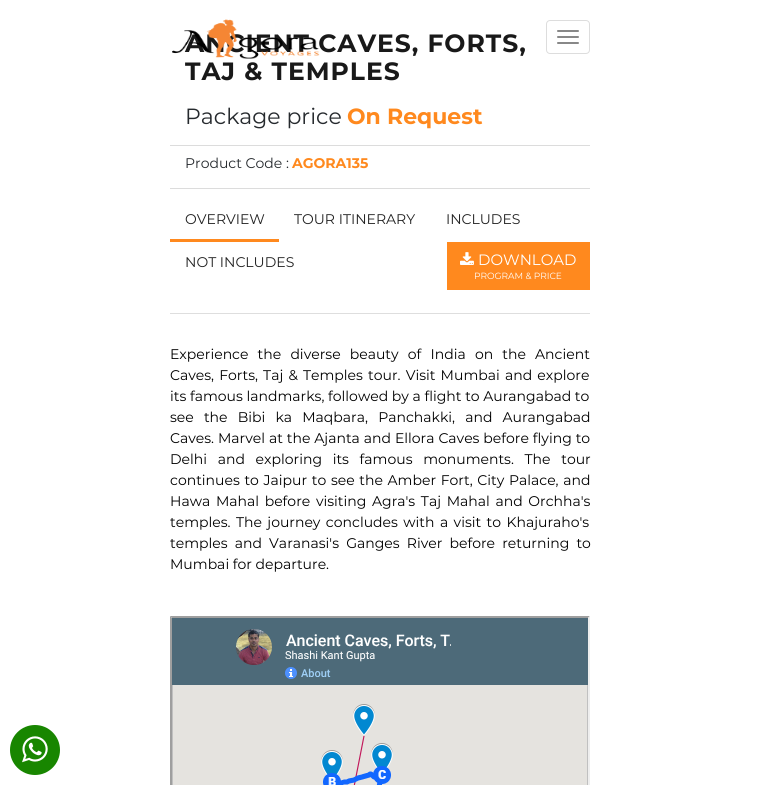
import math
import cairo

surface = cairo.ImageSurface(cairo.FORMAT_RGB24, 759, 785)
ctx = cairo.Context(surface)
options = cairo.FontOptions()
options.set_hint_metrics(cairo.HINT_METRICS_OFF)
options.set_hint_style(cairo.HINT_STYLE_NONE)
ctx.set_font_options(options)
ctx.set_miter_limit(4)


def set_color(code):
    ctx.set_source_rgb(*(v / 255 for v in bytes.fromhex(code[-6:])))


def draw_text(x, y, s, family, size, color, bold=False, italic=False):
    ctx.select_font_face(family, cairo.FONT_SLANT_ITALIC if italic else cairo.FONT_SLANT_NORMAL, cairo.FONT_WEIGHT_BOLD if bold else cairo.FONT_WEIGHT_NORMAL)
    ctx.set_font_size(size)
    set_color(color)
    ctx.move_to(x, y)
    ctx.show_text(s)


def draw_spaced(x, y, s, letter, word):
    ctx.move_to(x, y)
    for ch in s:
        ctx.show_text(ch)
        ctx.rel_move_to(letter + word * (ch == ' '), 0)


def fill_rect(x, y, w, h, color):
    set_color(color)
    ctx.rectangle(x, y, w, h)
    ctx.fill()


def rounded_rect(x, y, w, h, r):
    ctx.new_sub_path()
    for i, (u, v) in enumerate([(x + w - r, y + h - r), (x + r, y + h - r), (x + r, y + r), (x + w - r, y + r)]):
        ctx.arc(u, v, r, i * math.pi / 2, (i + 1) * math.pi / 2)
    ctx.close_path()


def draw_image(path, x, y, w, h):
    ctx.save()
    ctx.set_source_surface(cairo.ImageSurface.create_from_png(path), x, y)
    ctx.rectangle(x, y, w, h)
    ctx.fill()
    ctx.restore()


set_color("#ffffff")
ctx.paint()
ctx.select_font_face("Montserrat", cairo.FONT_SLANT_NORMAL, cairo.FONT_WEIGHT_BOLD)
ctx.set_font_size(25)
set_color("#191919")
draw_spaced(185, 52, "ANCIENT CAVES, FORTS,", 1, 0)
draw_image("assets/img1.png", 172, 19, 148, 40)
rounded_rect(546.5, 20.5, 43, 33, 3.5)
set_color("#dddddd")
ctx.set_line_width(1)
ctx.stroke()
set_color("#888888")
rounded_rect(557, 30, 22, 2, 1)
ctx.fill()
rounded_rect(557, 36, 22, 2, 1)
ctx.fill()
rounded_rect(557, 42, 22, 2, 1)
ctx.fill()
set_color("#191919")
draw_spaced(185, 80, "TAJ & TEMPLES", 1, 0)
fill_rect(170, 145, 420, 1, "#dcdcdc")
draw_text(185, 124, "Package price", "Montserrat", 22, "#262a2e")
draw_text(347, 124, "On Request", "Montserrat", 22, "#ff891e", bold=True)
fill_rect(170, 188, 420, 1, "#dcdcdc")
draw_text(185, 168, "Product Code :", "Montserrat", 14, "#262a2e")
draw_text(292, 168, "AGORA135", "Montserrat", 14, "#ff891e", bold=True)
fill_rect(170, 313, 420, 1, "#dedede")
fill_rect(170, 239, 109, 3, "#ff891e")
draw_text(185, 224, "OVERVIEW", "Montserrat", 14, "#222222")
draw_text(294, 224, "TOUR ITINERARY", "Montserrat", 14, "#222222")
draw_text(446, 224, "INCLUDES", "Montserrat", 14, "#222222")
draw_text(185, 267, "NOT INCLUDES", "Montserrat", 14, "#222222")
fill_rect(447, 242, 143, 48, "#ff891e")
draw_image("assets/img2.png", 460, 252, 14, 13)
draw_text(478, 265, "DOWNLOAD", "Montserrat", 15, "#ffffff")
draw_text(474, 279, "PROGRAM & PRICE", "Montserrat", 9, "#ffffff")
ctx.set_font_size(14)
set_color("#000000")
draw_spaced(170, 359, "Experience the diverse beauty of India on the Ancient", 0, 5.5)
draw_spaced(170, 380, "Caves, Forts, Taj & Temples tour. Visit Mumbai and explore", 0, 1.5)
draw_text(170, 401, "its famous landmarks, followed by a flight to Aurangabad to", "Montserrat", 14, "#000000")
draw_spaced(170, 422, "see the Bibi ka Maqbara, Panchakki, and Aurangabad", 0, 6.5)
draw_spaced(170, 443, "Caves. Marvel at the Ajanta and Ellora Caves before flying to", 0, 0.25)
draw_spaced(170, 464, "Delhi and exploring its famous monuments. The tour", 0, 7)
draw_spaced(170, 485, "continues to Jaipur to see the Amber Fort, City Palace, and", 0, 1)
draw_spaced(170, 506, "Hawa Mahal before visiting Agra's Taj Mahal and Orchha's", 0, 2)
draw_spaced(170, 527, "temples. The journey concludes with a visit to Khajuraho's", 0, 1.75)
draw_spaced(170, 548, "temples and Varanasi's Ganges River before returning to", 0, 3.5)
draw_text(170, 569, "Mumbai for departure.", "Montserrat", 14, "#000000")
set_color("#9f9f9f")
ctx.new_path()
ctx.move_to(170, 616)
ctx.line_to(590, 616)
ctx.line_to(588, 618)
ctx.line_to(172, 618)
ctx.close_path()
ctx.fill()
ctx.new_path()
ctx.move_to(170, 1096)
ctx.line_to(170, 616)
ctx.line_to(172, 618)
ctx.line_to(172, 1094)
ctx.close_path()
ctx.fill()
draw_image("assets/img3.png", 172, 618, 416, 167)
set_color("#eeeeee")
ctx.new_path()
ctx.move_to(590, 616)
ctx.line_to(590, 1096)
ctx.line_to(588, 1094)
ctx.line_to(588, 618)
ctx.close_path()
ctx.fill()
set_color("#188600")
ctx.arc(35, 750, 25, 0, 2 * math.pi)
ctx.fill()
draw_image("assets/img4.png", 22, 736, 26, 27)
surface.write_to_png("output.png")
